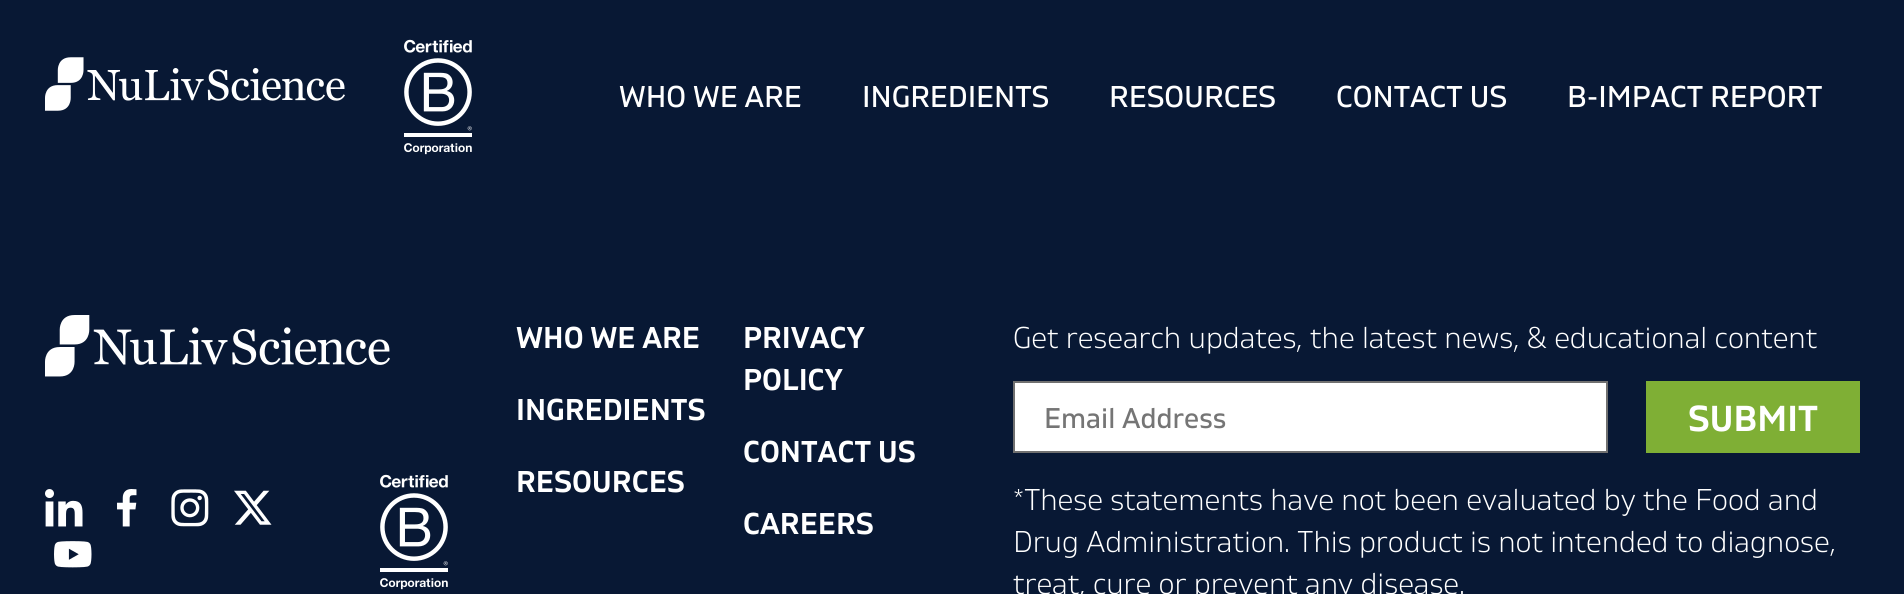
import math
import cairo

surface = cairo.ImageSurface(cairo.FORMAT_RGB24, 1904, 594)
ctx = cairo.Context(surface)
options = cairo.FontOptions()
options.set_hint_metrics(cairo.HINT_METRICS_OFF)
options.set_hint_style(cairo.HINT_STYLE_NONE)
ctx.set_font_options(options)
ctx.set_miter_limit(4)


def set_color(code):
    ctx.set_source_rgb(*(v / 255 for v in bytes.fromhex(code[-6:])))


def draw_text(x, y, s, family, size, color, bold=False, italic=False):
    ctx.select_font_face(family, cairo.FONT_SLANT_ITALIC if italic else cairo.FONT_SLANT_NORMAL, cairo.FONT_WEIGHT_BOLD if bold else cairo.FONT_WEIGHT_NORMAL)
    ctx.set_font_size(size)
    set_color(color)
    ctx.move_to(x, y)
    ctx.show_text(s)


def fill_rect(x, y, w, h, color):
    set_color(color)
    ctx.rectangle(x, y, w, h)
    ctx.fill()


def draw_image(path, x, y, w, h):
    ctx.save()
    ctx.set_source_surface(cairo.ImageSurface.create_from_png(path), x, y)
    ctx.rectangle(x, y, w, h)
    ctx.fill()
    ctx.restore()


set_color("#081834")
ctx.paint()
draw_image("assets/img1.png", 45, 57, 300, 54)
draw_image("assets/img2.png", 404, 39, 68, 116)
draw_text(619, 107, "WHO WE ARE", "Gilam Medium", 30, "#ffffff")
draw_text(862, 107, "INGREDIENTS", "Gilam Medium", 30, "#ffffff")
draw_text(1109, 107, "RESOURCES", "Gilam Medium", 30, "#ffffff")
draw_text(1336, 107, "CONTACT US", "Gilam Medium", 30, "#ffffff")
draw_text(1567, 107, "B-IMPACT REPORT", "Gilam Medium", 30, "#ffffff")
draw_image("assets/img3.png", 45, 315, 345, 62)
draw_image("assets/img4.png", 45, 489, 38, 38)
draw_image("assets/img5.png", 117, 489, 20, 38)
draw_image("assets/img6.png", 171, 489, 38, 38)
draw_image("assets/img7.png", 234, 490, 38, 35)
draw_image("assets/img8.png", 54, 541, 38, 27)
draw_image("assets/img2.png", 380, 474, 68, 116)
draw_text(516, 348, "WHO WE ARE", "Gilam SemiBold", 30, "#ffffff")
draw_text(516, 420, "INGREDIENTS", "Gilam SemiBold", 30, "#ffffff")
draw_text(516, 492, "RESOURCES", "Gilam SemiBold", 30, "#ffffff")
draw_text(743, 348, "PRIVACY", "Gilam SemiBold", 30, "#ffffff")
draw_text(743, 390, "POLICY", "Gilam SemiBold", 30, "#ffffff")
draw_text(743, 462, "CONTACT US", "Gilam SemiBold", 30, "#ffffff")
draw_text(743, 534, "CAREERS", "Gilam SemiBold", 30, "#ffffff")
draw_text(1013, 348, "Get research updates, the latest news, & educational content", "Gilam Light", 30, "#ffffff")
ctx.rectangle(1014, 382, 593, 70)
ctx.fill_preserve()
set_color("#707070")
ctx.stroke()
draw_text(1044, 428, "Email Address", "Gilam Medium", 28.5, "#757575")
fill_rect(1646, 381, 214, 72, "#7faf35")
draw_text(1688, 431, "SUBMIT", "Gilam SemiBold", 36, "#ffffff")
draw_text(1013, 510, "*These statements have not been evaluated by the Food and", "Gilam Light", 30, "#ffffff")
draw_text(1013, 552, "Drug Administration. This product is not intended to diagnose,", "Gilam Light", 30, "#ffffff")
draw_text(1013, 594, "treat, cure or prevent any disease.", "Gilam Light", 30, "#ffffff")
surface.write_to_png("output.png")
